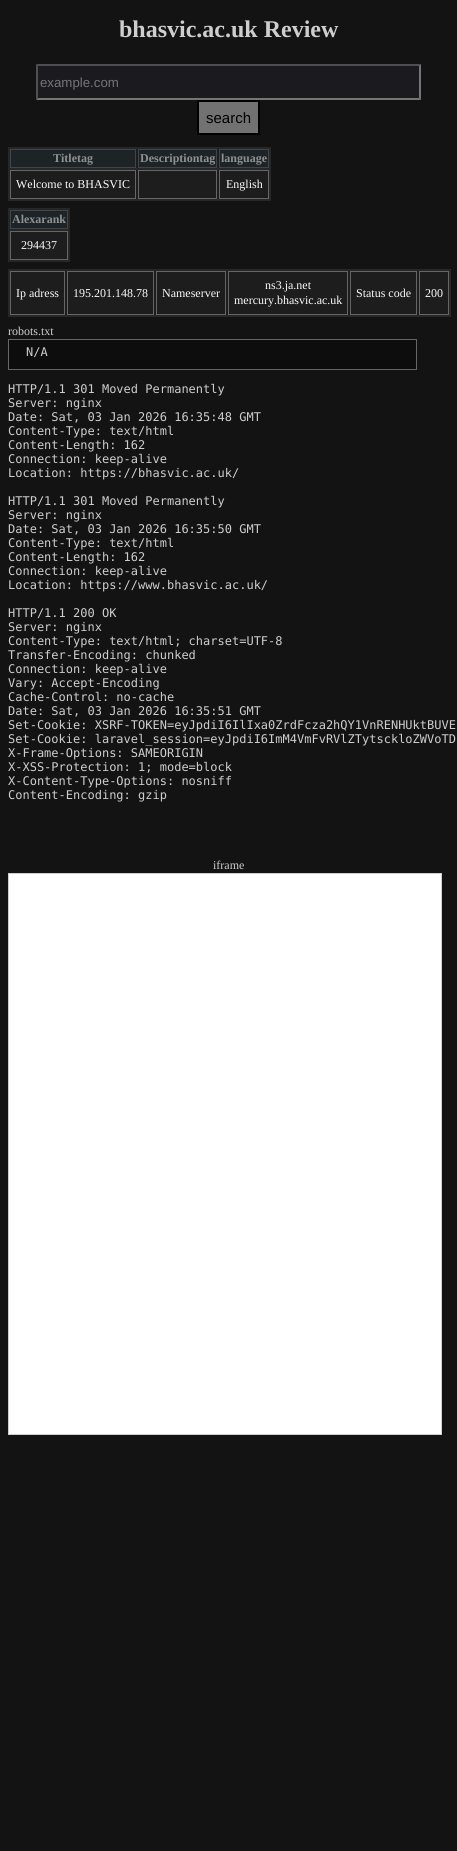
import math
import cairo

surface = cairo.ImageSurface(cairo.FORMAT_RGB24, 457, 1851)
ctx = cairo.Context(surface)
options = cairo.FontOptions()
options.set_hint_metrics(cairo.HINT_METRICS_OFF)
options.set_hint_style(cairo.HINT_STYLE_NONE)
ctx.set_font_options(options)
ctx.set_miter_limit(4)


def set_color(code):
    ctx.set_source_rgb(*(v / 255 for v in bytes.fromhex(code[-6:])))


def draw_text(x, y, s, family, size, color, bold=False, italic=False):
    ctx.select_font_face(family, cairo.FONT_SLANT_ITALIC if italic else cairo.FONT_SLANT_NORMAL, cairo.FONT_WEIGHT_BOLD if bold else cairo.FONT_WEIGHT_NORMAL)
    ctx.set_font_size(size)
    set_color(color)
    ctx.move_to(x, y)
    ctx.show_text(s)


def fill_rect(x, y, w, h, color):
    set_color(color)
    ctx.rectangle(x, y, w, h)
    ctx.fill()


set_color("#131313")
ctx.paint()
draw_text(119, 37, "bhasvic.ac.uk Review", "Liberation Serif", 24, "#cecece", bold=True)
fill_rect(36, 64, 385, 36, "#1b1a1f")
set_color("#4f4f4f")
ctx.new_path()
ctx.move_to(36, 64)
ctx.line_to(421, 64)
ctx.line_to(419, 66)
ctx.line_to(38, 66)
ctx.close_path()
ctx.fill()
set_color("#767676")
ctx.new_path()
ctx.move_to(421, 64)
ctx.line_to(421, 100)
ctx.line_to(419, 98)
ctx.line_to(419, 66)
ctx.close_path()
ctx.fill()
ctx.new_path()
ctx.move_to(421, 100)
ctx.line_to(36, 100)
ctx.line_to(38, 98)
ctx.line_to(419, 98)
ctx.close_path()
ctx.fill()
set_color("#4f4f4f")
ctx.new_path()
ctx.move_to(36, 100)
ctx.line_to(36, 64)
ctx.line_to(38, 66)
ctx.line_to(38, 98)
ctx.close_path()
ctx.fill()
draw_text(40, 87, "example.com", "Liberation Sans", 13.25, "#757575")
set_color("#727272")
ctx.rectangle(198, 101, 61, 33)
ctx.fill_preserve()
set_color("#000000")
ctx.stroke()
draw_text(206, 123, "search", "Liberation Sans", 15, "#000000")
fill_rect(8, 147, 263, 54, "#272727")
fill_rect(136, 149, 83, 19, "#1d1d1d")
set_color("#1d2428")
ctx.rectangle(10.5, 149.5, 125, 18)
ctx.fill_preserve()
set_color("#3f4548")
ctx.set_line_width(1)
ctx.stroke()
draw_text(53, 162, "Titletag", "Liberation Serif", 12, "#909090", bold=True)
set_color("#1d2428")
ctx.rectangle(138.5, 149.5, 78, 18)
ctx.fill_preserve()
set_color("#3f4548")
ctx.stroke()
draw_text(140, 162, "Descriptiontag", "Liberation Serif", 12, "#909090", bold=True)
set_color("#1d2428")
ctx.rectangle(219.5, 149.5, 49, 18)
ctx.fill_preserve()
set_color("#3f4548")
ctx.stroke()
draw_text(221, 162, "language", "Liberation Serif", 12, "#909090", bold=True)
fill_rect(11, 170, 257, 29, "#1d1d1d")
ctx.rectangle(10.5, 170.5, 125, 28)
set_color("#666666")
ctx.stroke()
draw_text(16, 188, "Welcome to BHASVIC", "Liberation Serif", 12, "#fbfbfb")
ctx.rectangle(138.5, 170.5, 78, 28)
set_color("#666666")
ctx.stroke()
ctx.rectangle(219.5, 170.5, 49, 28)
ctx.stroke()
draw_text(226, 188, "English", "Liberation Serif", 12, "#fbfbfb")
fill_rect(8, 208, 62, 54, "#272727")
set_color("#1d2428")
ctx.rectangle(10.5, 210.5, 57, 18)
ctx.fill_preserve()
set_color("#3f4548")
ctx.stroke()
draw_text(12, 223, "Alexarank", "Liberation Serif", 12, "#909090", bold=True)
set_color("#1d1d1d")
ctx.rectangle(10.5, 231.5, 57, 28)
ctx.fill_preserve()
set_color("#666666")
ctx.stroke()
draw_text(21, 249, "294437", "Liberation Serif", 12, "#fbfbfb")
fill_rect(8, 269, 443, 48, "#272727")
fill_rect(11, 271, 437, 44, "#1d1d1d")
ctx.rectangle(10.5, 271.5, 54, 43)
set_color("#666666")
ctx.stroke()
draw_text(16, 297, "Ip adress", "Liberation Serif", 12, "#fbfbfb")
ctx.rectangle(67.5, 271.5, 86, 43)
set_color("#666666")
ctx.stroke()
draw_text(73, 297, "195.201.148.78", "Liberation Serif", 12, "#fbfbfb")
ctx.rectangle(156.5, 271.5, 69, 43)
set_color("#666666")
ctx.stroke()
draw_text(162, 297, "Nameserver", "Liberation Serif", 12, "#fbfbfb")
ctx.rectangle(228.5, 271.5, 119, 43)
set_color("#666666")
ctx.stroke()
draw_text(265, 289, "ns3.ja.net", "Liberation Serif", 12, "#fbfbfb")
draw_text(234, 304, "mercury.bhasvic.ac.uk", "Liberation Serif", 12, "#fbfbfb")
ctx.rectangle(350.5, 271.5, 66, 43)
set_color("#666666")
ctx.stroke()
draw_text(356, 297, "Status code", "Liberation Serif", 12, "#fbfbfb")
ctx.rectangle(419.5, 271.5, 29, 43)
set_color("#666666")
ctx.stroke()
draw_text(425, 297, "200", "Liberation Serif", 12, "#fbfbfb")
draw_text(8, 335, "robots.txt", "Liberation Serif", 12, "#cecece")
set_color("#0d0d0d")
ctx.rectangle(8.5, 339.5, 408, 30)
ctx.fill_preserve()
set_color("#666666")
ctx.stroke()
draw_text(26, 356, "N/A", "DejaVu Sans Mono", 12, "#cecece")
draw_text(8, 393, "HTTP/1.1 301 Moved Permanently", "DejaVu Sans Mono", 12, "#cecece")
draw_text(8, 407, "Server: nginx", "DejaVu Sans Mono", 12, "#cecece")
draw_text(8, 421, "Date: Sat, 03 Jan 2026 16:35:48 GMT", "DejaVu Sans Mono", 12, "#cecece")
draw_text(8, 435, "Content-Type: text/html", "DejaVu Sans Mono", 12, "#cecece")
draw_text(8, 449, "Content-Length: 162", "DejaVu Sans Mono", 12, "#cecece")
draw_text(8, 463, "Connection: keep-alive", "DejaVu Sans Mono", 12, "#cecece")
draw_text(8, 477, "Location: https://bhasvic.ac.uk/", "DejaVu Sans Mono", 12, "#cecece")
draw_text(8, 505, "HTTP/1.1 301 Moved Permanently", "DejaVu Sans Mono", 12, "#cecece")
draw_text(8, 519, "Server: nginx", "DejaVu Sans Mono", 12, "#cecece")
draw_text(8, 533, "Date: Sat, 03 Jan 2026 16:35:50 GMT", "DejaVu Sans Mono", 12, "#cecece")
draw_text(8, 547, "Content-Type: text/html", "DejaVu Sans Mono", 12, "#cecece")
draw_text(8, 561, "Content-Length: 162", "DejaVu Sans Mono", 12, "#cecece")
draw_text(8, 575, "Connection: keep-alive", "DejaVu Sans Mono", 12, "#cecece")
draw_text(8, 589, "Location: https://www.bhasvic.ac.uk/", "DejaVu Sans Mono", 12, "#cecece")
draw_text(8, 617, "HTTP/1.1 200 OK", "DejaVu Sans Mono", 12, "#cecece")
draw_text(8, 631, "Server: nginx", "DejaVu Sans Mono", 12, "#cecece")
draw_text(8, 645, "Content-Type: text/html; charset=UTF-8", "DejaVu Sans Mono", 12, "#cecece")
draw_text(8, 659, "Transfer-Encoding: chunked", "DejaVu Sans Mono", 12, "#cecece")
draw_text(8, 673, "Connection: keep-alive", "DejaVu Sans Mono", 12, "#cecece")
draw_text(8, 687, "Vary: Accept-Encoding", "DejaVu Sans Mono", 12, "#cecece")
draw_text(8, 701, "Cache-Control: no-cache", "DejaVu Sans Mono", 12, "#cecece")
draw_text(8, 715, "Date: Sat, 03 Jan 2026 16:35:51 GMT", "DejaVu Sans Mono", 12, "#cecece")
draw_text(8, 729, "Set-Cookie: XSRF-TOKEN=eyJpdiI6IlIxa0ZrdFcza2hQY1VnRENHUktBUVE", "DejaVu Sans Mono", 12, "#cecece")
draw_text(8, 743, "Set-Cookie: laravel_session=eyJpdiI6ImM4VmFvRVlZTytsckloZWVoTD", "DejaVu Sans Mono", 12, "#cecece")
draw_text(8, 757, "X-Frame-Options: SAMEORIGIN", "DejaVu Sans Mono", 12, "#cecece")
draw_text(8, 771, "X-XSS-Protection: 1; mode=block", "DejaVu Sans Mono", 12, "#cecece")
draw_text(8, 785, "X-Content-Type-Options: nosniff", "DejaVu Sans Mono", 12, "#cecece")
draw_text(8, 799, "Content-Encoding: gzip", "DejaVu Sans Mono", 12, "#cecece")
draw_text(213, 869, "iframe", "Liberation Serif", 12, "#cecece")
set_color("#ffffff")
ctx.rectangle(8.5, 873.5, 433, 561)
ctx.fill_preserve()
set_color("#cecece")
ctx.stroke()
surface.write_to_png("output.png")
